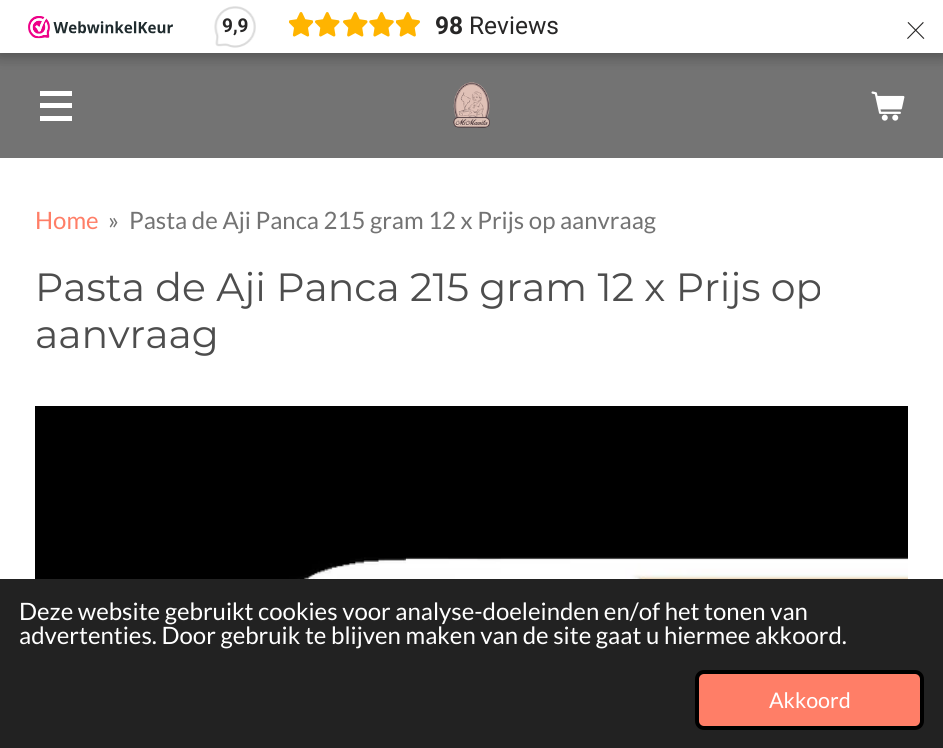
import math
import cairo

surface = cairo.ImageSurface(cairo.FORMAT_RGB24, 943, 748)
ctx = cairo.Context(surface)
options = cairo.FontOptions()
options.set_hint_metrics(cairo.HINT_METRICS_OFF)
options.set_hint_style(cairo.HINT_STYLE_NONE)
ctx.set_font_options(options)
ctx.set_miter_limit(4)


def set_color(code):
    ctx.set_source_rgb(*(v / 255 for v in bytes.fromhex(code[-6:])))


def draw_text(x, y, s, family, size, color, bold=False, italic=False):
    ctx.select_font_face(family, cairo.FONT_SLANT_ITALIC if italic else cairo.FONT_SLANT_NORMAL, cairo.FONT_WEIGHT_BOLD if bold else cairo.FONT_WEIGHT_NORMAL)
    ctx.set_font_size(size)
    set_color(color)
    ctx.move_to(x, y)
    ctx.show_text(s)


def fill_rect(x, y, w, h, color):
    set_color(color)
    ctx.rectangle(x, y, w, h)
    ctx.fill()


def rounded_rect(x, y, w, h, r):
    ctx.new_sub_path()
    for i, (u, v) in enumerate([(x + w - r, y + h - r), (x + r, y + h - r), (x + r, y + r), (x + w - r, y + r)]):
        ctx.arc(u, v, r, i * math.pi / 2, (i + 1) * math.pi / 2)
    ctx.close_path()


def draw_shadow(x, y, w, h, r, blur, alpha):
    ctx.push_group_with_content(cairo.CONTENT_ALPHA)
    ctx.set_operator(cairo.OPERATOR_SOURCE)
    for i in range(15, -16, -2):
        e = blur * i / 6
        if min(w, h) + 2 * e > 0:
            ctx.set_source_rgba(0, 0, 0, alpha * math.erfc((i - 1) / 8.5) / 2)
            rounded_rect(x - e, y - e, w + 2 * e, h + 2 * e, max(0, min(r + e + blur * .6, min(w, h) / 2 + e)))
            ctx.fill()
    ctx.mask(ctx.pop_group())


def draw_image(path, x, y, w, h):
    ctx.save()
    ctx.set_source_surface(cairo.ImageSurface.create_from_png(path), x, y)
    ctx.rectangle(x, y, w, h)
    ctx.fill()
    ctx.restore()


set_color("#ffffff")
ctx.paint()
fill_rect(0, 53, 943, 105, "#737373")
set_color("#000000")
draw_shadow(-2, -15, 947, 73, 0, 5, 0.15)
draw_image("assets/img7.png", 453, 82, 37, 46)
draw_shadow(0, 4, 943, 52, 0, 9, 0.15)
fill_rect(0, 0, 943, 53, "#ffffff")
draw_image("assets/img1.png", 28, 16, 145, 23)
draw_image("assets/img2.png", 214, 6, 42, 42)
draw_text(222, 32, "9,9", "Roboto", 19, "#272626", bold=True)
draw_image("assets/img3.png", 289, 12, 24, 25)
draw_image("assets/img4.png", 315, 12, 25, 25)
draw_image("assets/img4.png", 343, 12, 25, 25)
draw_image("assets/img5.png", 369, 12, 25, 25)
draw_image("assets/img6.png", 396, 12, 24, 25)
draw_text(435, 34, "98", "Roboto", 24.5, "#272626", bold=True)
draw_text(469, 34, "Reviews", "Roboto", 24.5, "#272626")
draw_text(905, 39, "×", "Roboto Thin", 42, "#272626")
fill_rect(40, 103, 32, 5, "#ffffff")
fill_rect(40, 91, 32, 5, "#ffffff")
fill_rect(40, 116, 32, 5, "#ffffff")
draw_image("assets/img8.png", 871, 91, 34, 30)
draw_text(35, 229, "Home", "Lato", 23.95, "#ff7e67")
draw_text(108, 229, "»", "Lato", 23.95, "#737373")
draw_text(129, 229, "Pasta de Aji Panca 215 gram 12 x Prijs op aanvraag", "Lato", 23.95, "#737373")
draw_text(35, 301, "Pasta de Aji Panca 215 gram 12 x Prijs op", "Montserrat", 39.4, "#4d4d4d")
draw_text(35, 348, "aanvraag", "Montserrat", 39.4, "#4d4d4d")
draw_image("assets/img9.png", 35, 406, 873, 173)
fill_rect(0, 579, 943, 169, "#222222")
draw_text(19, 620, "Deze website gebruikt cookies voor analyse-doeleinden en/of het tonen van", "Lato", 23.95, "#ffffff")
draw_text(19, 644, "advertenties. Door gebruik te blijven maken van de site gaat u hiermee akkoord.", "Lato", 23.95, "#ffffff")
set_color("#ff7e67")
rounded_rect(697, 672, 225, 56, 7)
ctx.fill_preserve()
set_color("#000000")
ctx.set_line_width(4)
ctx.stroke()
draw_text(769, 708, "Akkoord", "Lato", 21.5, "#ffffff")
surface.write_to_png("output.png")
